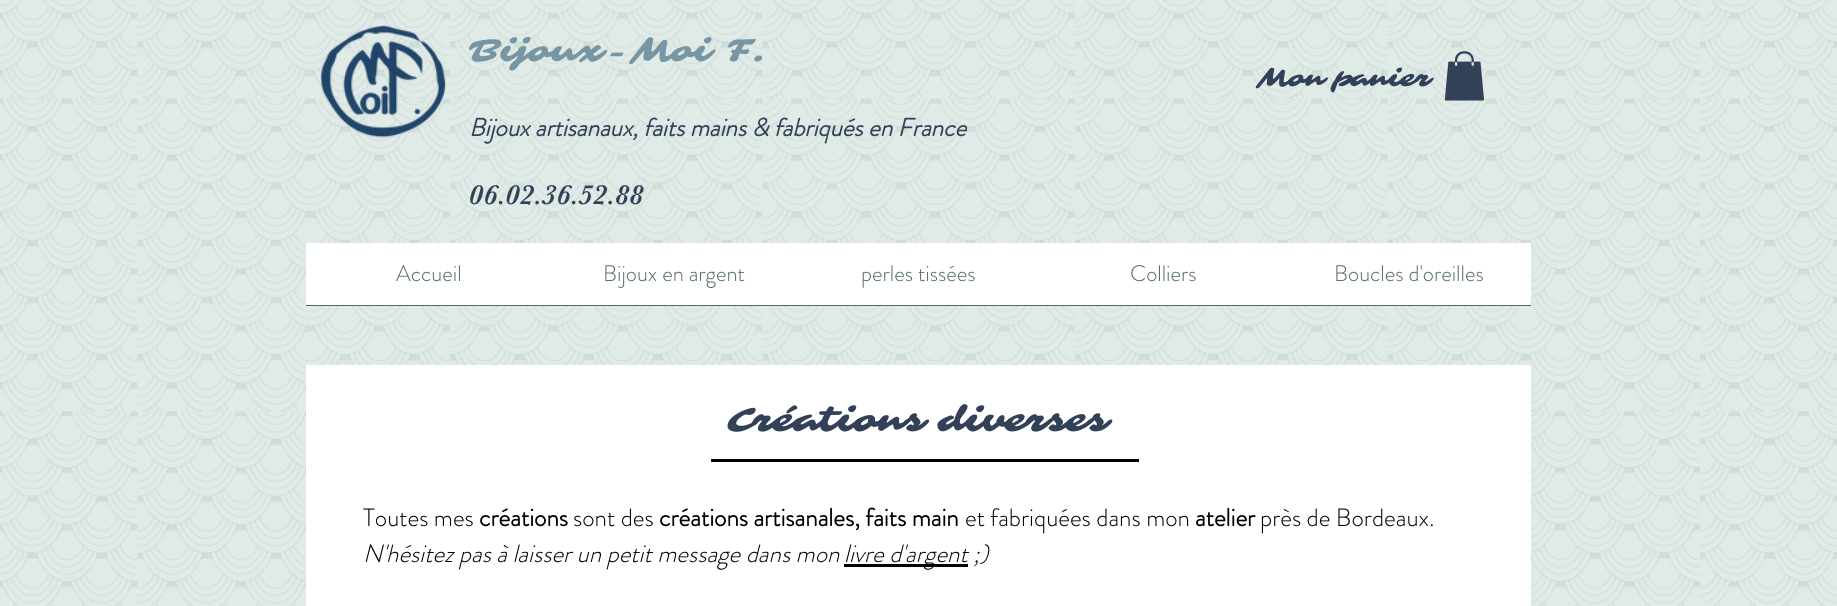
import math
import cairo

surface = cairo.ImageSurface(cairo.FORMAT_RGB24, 1837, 606)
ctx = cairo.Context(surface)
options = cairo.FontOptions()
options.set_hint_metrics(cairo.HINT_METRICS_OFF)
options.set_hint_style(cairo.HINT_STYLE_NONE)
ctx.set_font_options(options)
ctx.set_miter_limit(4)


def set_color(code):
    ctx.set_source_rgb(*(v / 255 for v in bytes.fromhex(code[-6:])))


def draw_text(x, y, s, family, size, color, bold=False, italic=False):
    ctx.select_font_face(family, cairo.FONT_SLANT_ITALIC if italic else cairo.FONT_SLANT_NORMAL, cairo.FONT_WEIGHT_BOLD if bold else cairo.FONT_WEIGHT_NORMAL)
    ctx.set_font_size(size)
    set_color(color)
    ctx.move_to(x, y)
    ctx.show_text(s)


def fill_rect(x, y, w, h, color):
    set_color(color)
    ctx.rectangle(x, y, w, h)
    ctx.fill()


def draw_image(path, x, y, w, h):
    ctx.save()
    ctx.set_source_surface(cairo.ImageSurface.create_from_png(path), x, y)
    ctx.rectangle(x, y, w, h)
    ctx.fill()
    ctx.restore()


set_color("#cedfd9")
ctx.paint()
draw_image("assets/img1.png", 0, 0, 1837, 606)
draw_image("assets/img2.png", 320, 25, 127, 113)
draw_text(469, 61, "Bijoux-Moi F.", "Sarina", 32.5, "#7795a3")
draw_text(1257, 86, "Mon panier", "Sarina", 25, "#324158")
draw_image("assets/img3.png", 1444, 51, 40, 50)
draw_text(469, 136, "Bijoux artisanaux, faits mains & fabriqués en France", "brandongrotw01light", 25, "#324158", bold=True, italic=True)
draw_text(469, 204, "06.02.36.52.88", "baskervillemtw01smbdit", 28.75, "#324158")
fill_rect(306, 243, 1225, 62, "#ffffff")
fill_rect(306, 305, 1225, 1, "#516961")
draw_text(396, 281, "Accueil", "brandongrotw01light Light", 22.5, "#516961")
draw_text(603, 281, "Bijoux en argent", "brandongrotw01light Light", 22.5, "#516961")
draw_text(861, 281, "perles tissées", "brandongrotw01light Light", 22.5, "#516961")
draw_text(1130, 281, "Colliers", "brandongrotw01light Light", 22.5, "#516961")
draw_text(1334, 281, "Boucles d'oreilles", "brandongrotw01light Light", 22.5, "#516961")
fill_rect(306, 365, 1225, 241, "#ffffff")
draw_text(727, 431, "Créations diverses", "Sarina", 35, "#324158")
fill_rect(711, 459, 428, 3, "#000000")
draw_text(363, 526, "Toutes mes", "brandongrotw01light Light", 25, "#000000")
draw_text(479, 526, "créations", "brandongrotw01light", 25, "#000000", bold=True)
draw_text(573, 526, "sont des", "brandongrotw01light Light", 25, "#000000")
draw_text(659, 526, "créations artisanales, faits main", "brandongrotw01light", 25, "#000000", bold=True)
draw_text(965, 526, "et fabriquées dans mon", "brandongrotw01light Light", 25, "#000000")
draw_text(1195, 526, "atelier", "brandongrotw01light", 25, "#000000", bold=True)
draw_text(1260, 526, "près de Bordeaux.", "brandongrotw01light Light", 25, "#000000")
draw_text(363, 562, "N'hésitez pas à laisser un petit message dans mon", "brandongrotw01light Light", 25, "#000000", italic=True)
fill_rect(844, 564, 124, 3, "#000000")
draw_text(844, 562, "livre d'argent ;)", "brandongrotw01light Light", 25, "#000000", italic=True)
surface.write_to_png("output.png")
